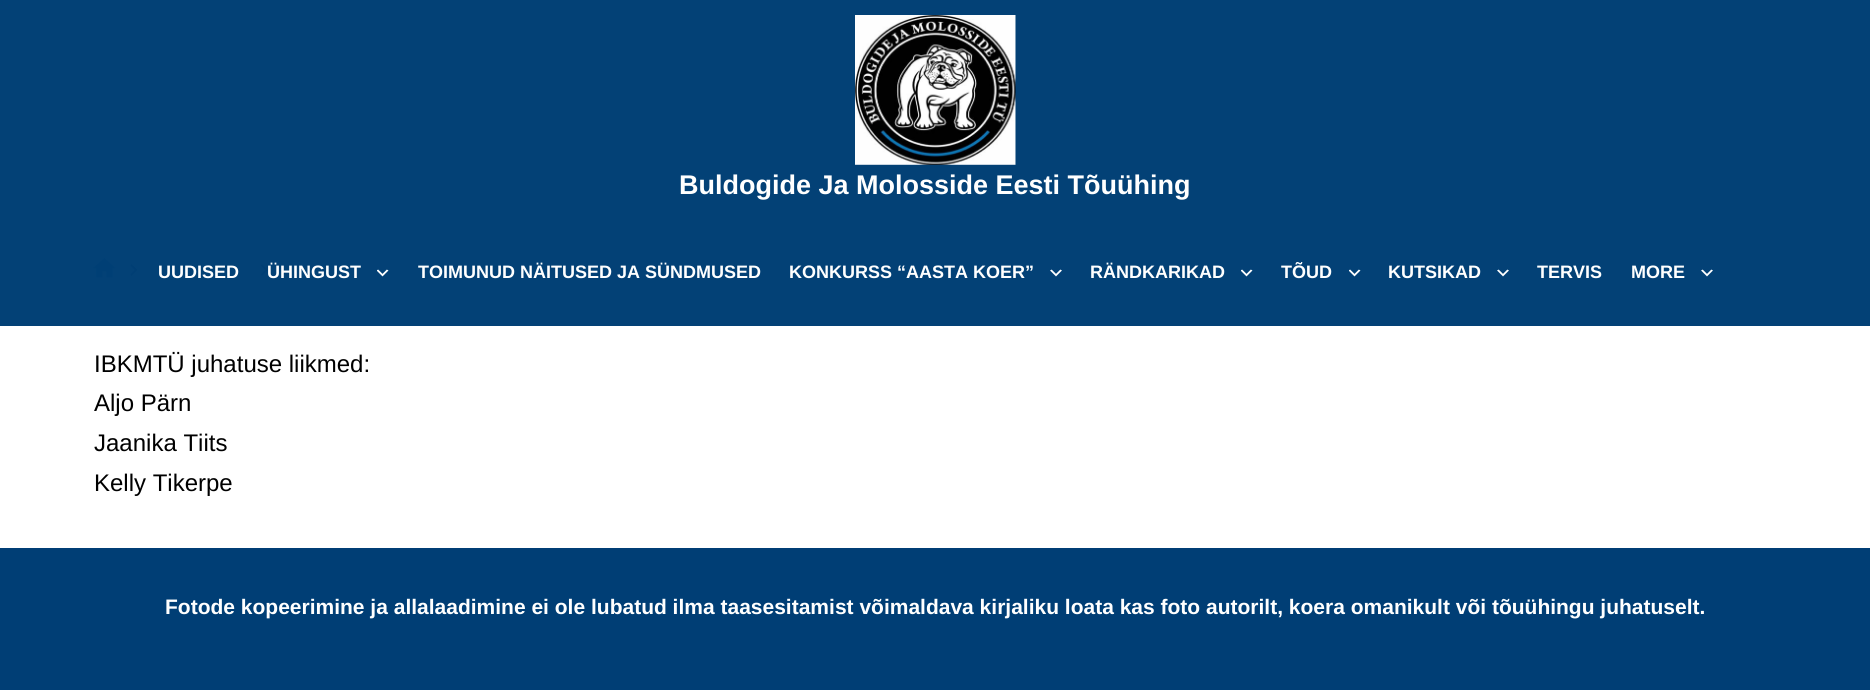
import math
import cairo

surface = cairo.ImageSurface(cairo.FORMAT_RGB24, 1870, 690)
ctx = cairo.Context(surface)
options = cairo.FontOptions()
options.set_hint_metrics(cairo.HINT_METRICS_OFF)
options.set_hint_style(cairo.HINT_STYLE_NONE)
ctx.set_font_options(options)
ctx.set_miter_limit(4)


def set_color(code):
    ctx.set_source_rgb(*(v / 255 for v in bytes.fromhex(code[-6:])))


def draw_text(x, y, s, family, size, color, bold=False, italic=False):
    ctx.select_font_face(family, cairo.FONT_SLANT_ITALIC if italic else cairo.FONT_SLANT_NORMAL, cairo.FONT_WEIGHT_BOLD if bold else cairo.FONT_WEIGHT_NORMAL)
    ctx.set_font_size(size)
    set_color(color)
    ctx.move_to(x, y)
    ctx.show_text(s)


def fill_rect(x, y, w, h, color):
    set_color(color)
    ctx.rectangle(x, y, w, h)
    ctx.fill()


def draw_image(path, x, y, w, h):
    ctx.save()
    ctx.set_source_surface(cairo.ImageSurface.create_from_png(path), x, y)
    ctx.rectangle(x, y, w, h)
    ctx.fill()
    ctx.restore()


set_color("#ffffff")
ctx.paint()
fill_rect(0, 0, 1870, 326, "#034176")
draw_image("assets/img1.png", 855, 15, 161, 150)
draw_text(679, 194, "Buldogide Ja Molosside Eesti Tõuühing", "Liberation Sans", 27, "#ffffff", bold=True)
draw_text(158, 278, "UUDISED", "Liberation Sans", 18, "#ffffff", bold=True)
draw_text(267, 278, "ÜHINGUST", "Liberation Sans", 18, "#ffffff", bold=True)
draw_image("assets/img2.png", 377, 269, 12, 8)
draw_text(418, 278, "TOIMUNUD NÄITUSED JA SÜNDMUSED", "Liberation Sans", 18, "#ffffff", bold=True)
draw_text(789, 278, "KONKURSS “AASTA KOER”", "Liberation Sans", 18, "#ffffff", bold=True)
draw_image("assets/img3.png", 1050, 269, 12, 8)
draw_text(1090, 278, "RÄNDKARIKAD", "Liberation Sans", 18, "#ffffff", bold=True)
draw_image("assets/img4.png", 1241, 269, 12, 8)
draw_text(1281, 278, "TÕUD", "Liberation Sans", 18, "#ffffff", bold=True)
draw_image("assets/img4.png", 1349, 269, 12, 8)
draw_text(1388, 278, "KUTSIKAD", "Liberation Sans", 18, "#ffffff", bold=True)
draw_image("assets/img3.png", 1497, 269, 12, 8)
draw_text(1537, 278, "TERVIS", "Liberation Sans", 18, "#ffffff", bold=True)
draw_text(1631, 278, "MORE", "Liberation Sans", 18, "#ffffff", bold=True)
draw_image("assets/img3.png", 1701, 269, 12, 8)
draw_image("assets/img5.png", 93, 258, 23, 20)
draw_image("assets/img6.png", 130, 264, 8, 12)
draw_image("assets/img7.png", 261, 264, 7, 12)
draw_text(94, 372, "IBKMTÜ juhatuse liikmed:", "Liberation Sans", 24, "#000000")
draw_text(94, 411, "Aljo Pärn", "Liberation Sans", 24, "#000000")
draw_text(94, 451, "Jaanika Tiits", "Liberation Sans", 24, "#000000")
draw_text(94, 491, "Kelly Tikerpe", "Liberation Sans", 24, "#000000")
fill_rect(0, 548, 1870, 142, "#003e75")
draw_text(165, 614, "Fotode kopeerimine ja allalaadimine ei ole lubatud ilma taasesitamist võimaldava kirjaliku loata kas foto autorilt, koera omanikult või tõuühingu juhatuselt.", "Liberation Sans", 21, "#ffffff", bold=True)
surface.write_to_png("output.png")
